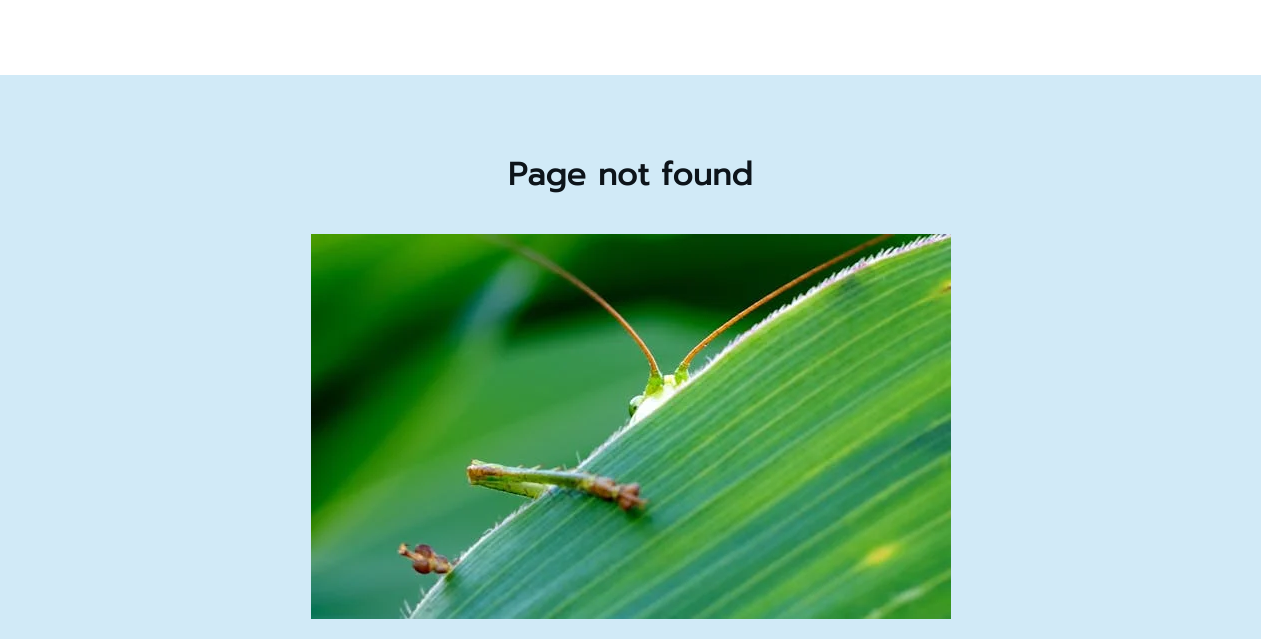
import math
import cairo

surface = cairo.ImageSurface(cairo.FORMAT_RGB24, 1261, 639)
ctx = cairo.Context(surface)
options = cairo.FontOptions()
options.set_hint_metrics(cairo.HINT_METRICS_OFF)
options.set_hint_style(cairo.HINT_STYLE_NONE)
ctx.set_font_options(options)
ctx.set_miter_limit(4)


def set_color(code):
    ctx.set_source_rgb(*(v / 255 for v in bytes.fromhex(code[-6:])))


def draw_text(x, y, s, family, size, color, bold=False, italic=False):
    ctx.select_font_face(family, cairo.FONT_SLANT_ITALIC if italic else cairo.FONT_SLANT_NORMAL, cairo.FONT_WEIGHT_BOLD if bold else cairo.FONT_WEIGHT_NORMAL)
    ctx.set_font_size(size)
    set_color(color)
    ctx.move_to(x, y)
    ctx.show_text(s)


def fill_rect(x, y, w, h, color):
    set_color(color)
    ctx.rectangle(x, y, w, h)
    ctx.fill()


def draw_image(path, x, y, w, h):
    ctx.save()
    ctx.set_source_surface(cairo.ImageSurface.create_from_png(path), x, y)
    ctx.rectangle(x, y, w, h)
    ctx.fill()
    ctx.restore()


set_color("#ffffff")
ctx.paint()
fill_rect(0, 75, 1261, 564, "#d1eaf7")
draw_text(508, 185, "Page not found", "Prompt", 32, "#0d141a", bold=True)
draw_image("assets/img1.png", 311, 234, 640, 385)
surface.write_to_png("output.png")
